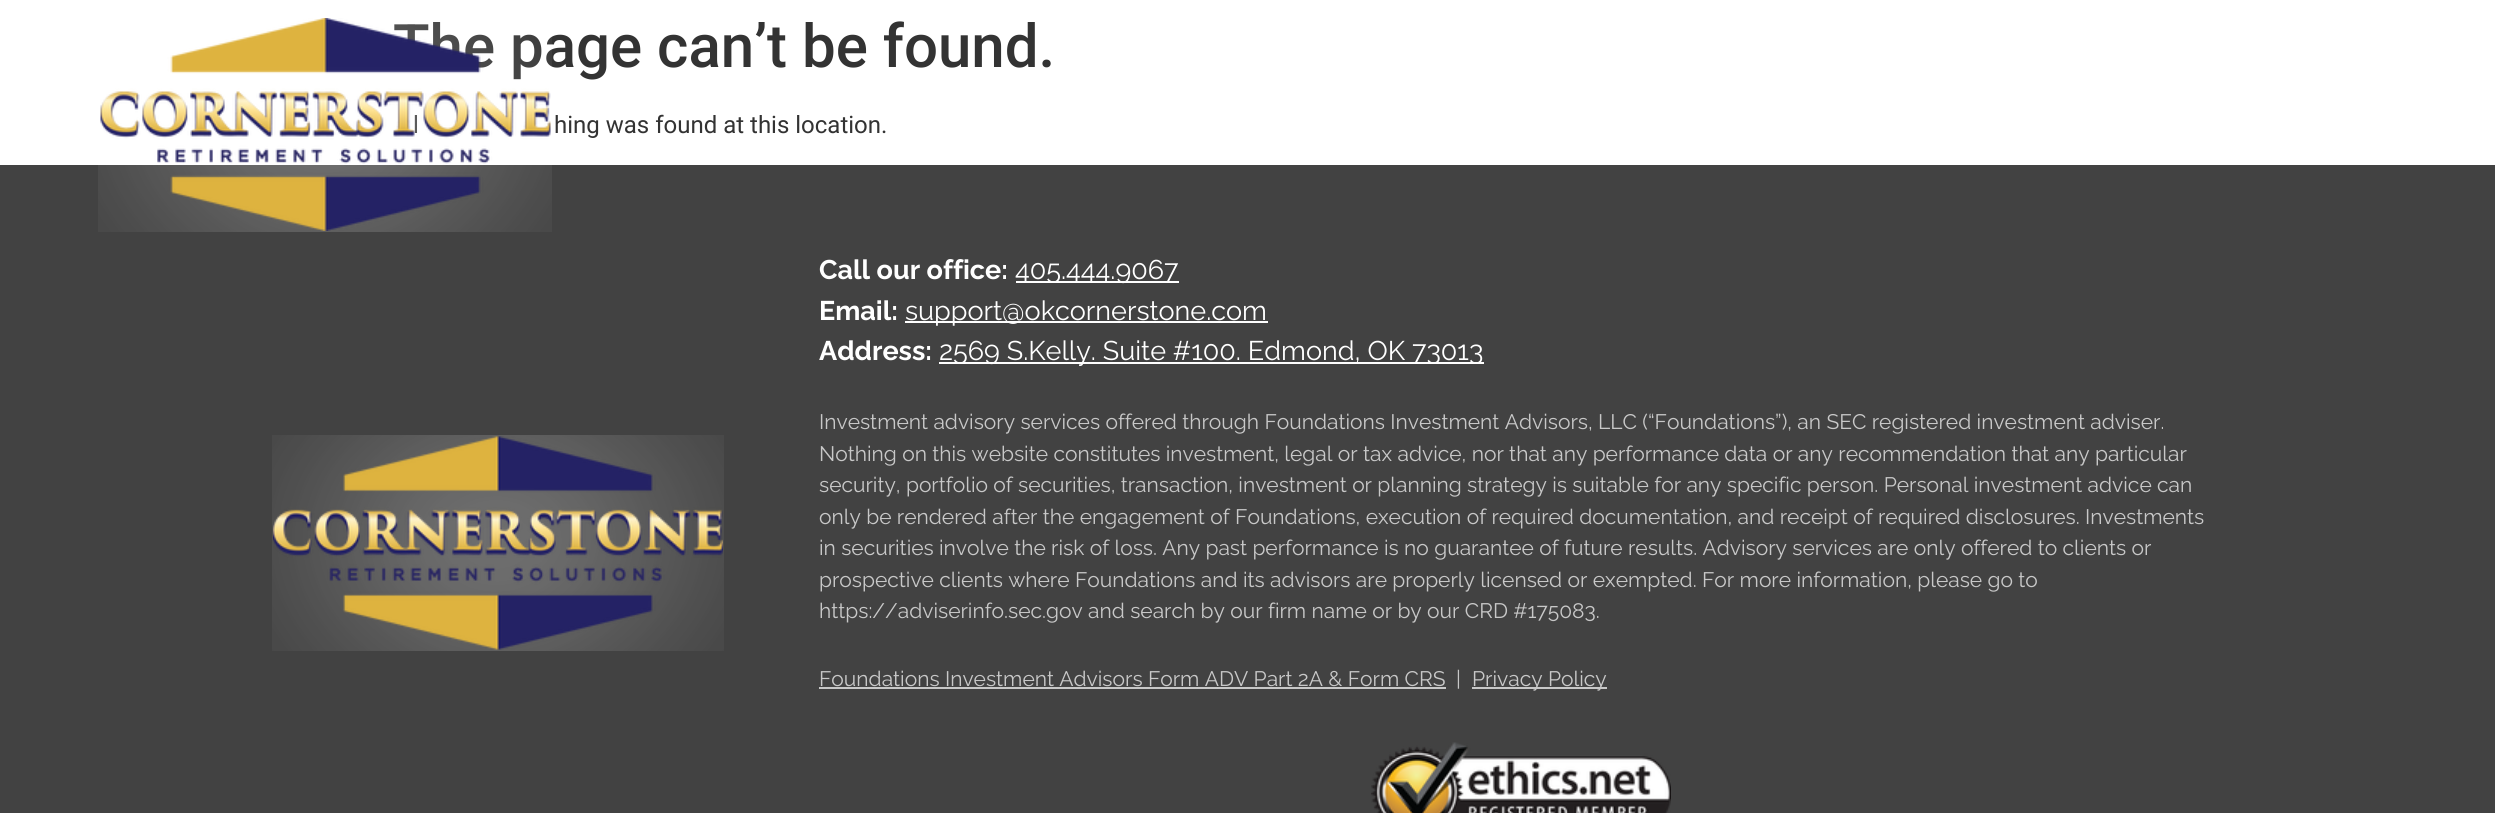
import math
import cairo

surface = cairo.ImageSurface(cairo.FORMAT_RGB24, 2495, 813)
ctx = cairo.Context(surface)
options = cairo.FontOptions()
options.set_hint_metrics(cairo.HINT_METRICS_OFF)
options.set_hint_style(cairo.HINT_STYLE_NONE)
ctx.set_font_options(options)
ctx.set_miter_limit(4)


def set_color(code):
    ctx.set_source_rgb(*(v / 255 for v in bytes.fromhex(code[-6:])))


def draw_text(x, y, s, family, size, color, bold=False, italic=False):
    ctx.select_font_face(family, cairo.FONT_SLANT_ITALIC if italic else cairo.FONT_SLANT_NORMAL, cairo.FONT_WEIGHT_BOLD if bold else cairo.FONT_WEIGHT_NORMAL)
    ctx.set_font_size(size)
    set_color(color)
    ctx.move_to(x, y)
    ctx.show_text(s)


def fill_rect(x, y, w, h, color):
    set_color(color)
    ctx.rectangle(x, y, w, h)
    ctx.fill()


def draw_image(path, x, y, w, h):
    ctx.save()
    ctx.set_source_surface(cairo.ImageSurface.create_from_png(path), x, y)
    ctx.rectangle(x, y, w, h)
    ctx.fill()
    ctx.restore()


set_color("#ffffff")
ctx.paint()
draw_text(393, 67, "The page can’t be found.", "Roboto Medium", 60, "#333333")
draw_text(413, 133, "l", "Roboto", 24, "#333333")
fill_rect(0, 165, 2495, 648, "#424242")
draw_image("assets/img1.png", 98, 18, 454, 214)
draw_text(554, 133, "hing was found at this location.", "Roboto", 24, "#333333")
draw_image("assets/img2.png", 272, 435, 452, 216)
draw_text(819, 279, "Call our office:", "Raleway", 27, "#ffffff", bold=True)
fill_rect(1016, 281, 163, 2, "#ffffff")
draw_text(1015, 279, "405.444.9067", "Raleway", 27, "#ffffff")
draw_text(819, 320, "Email:", "Raleway", 27, "#ffffff", bold=True)
fill_rect(905, 321, 363, 2, "#ffffff")
draw_text(905, 320, "support@okcornerstone.com", "Raleway", 27, "#ffffff")
draw_text(819, 360, "Address:", "Raleway", 27, "#ffffff", bold=True)
fill_rect(939, 362, 545, 2, "#ffffff")
draw_text(939, 360, "2569 S.Kelly. Suite #100. Edmond, OK 73013", "Raleway", 27, "#ffffff")
draw_text(819, 429, "Investment advisory services offered through Foundations Investment Advisors, LLC (“Foundations”), an SEC registered investment adviser.", "Raleway", 21, "#c8c8c8")
draw_text(819, 461, "Nothing on this website constitutes investment, legal or tax advice, nor that any performance data or any recommendation that any particular", "Raleway", 21, "#c8c8c8")
draw_text(819, 492, "security, portfolio of securities, transaction, investment or planning strategy is suitable for any specific person. Personal investment advice can", "Raleway", 21, "#c8c8c8")
draw_text(819, 524, "only be rendered after the engagement of Foundations, execution of required documentation, and receipt of required disclosures. Investments", "Raleway", 21, "#c8c8c8")
draw_text(819, 555, "in securities involve the risk of loss. Any past performance is no guarantee of future results. Advisory services are only offered to clients or", "Raleway", 21, "#c8c8c8")
draw_text(819, 587, "prospective clients where Foundations and its advisors are properly licensed or exempted. For more information, please go to", "Raleway", 21, "#c8c8c8")
draw_text(819, 618, "https://adviserinfo.sec.gov and search by our firm name or by our CRD #175083.", "Raleway", 21, "#c8c8c8")
draw_text(819, 686, "Foundations Investment Advisors Form ADV Part 2A & Form CRS", "Raleway", 21, "#c8c8c8")
fill_rect(819, 687, 627, 2, "#c8c8c8")
draw_text(1456, 686, "|", "Raleway", 21, "#c8c8c8")
fill_rect(1472, 687, 135, 2, "#c8c8c8")
draw_text(1472, 686, "Privacy Policy", "Raleway", 21, "#c8c8c8")
draw_image("assets/img3.png", 1371, 742, 300, 71)
surface.write_to_png("output.png")
